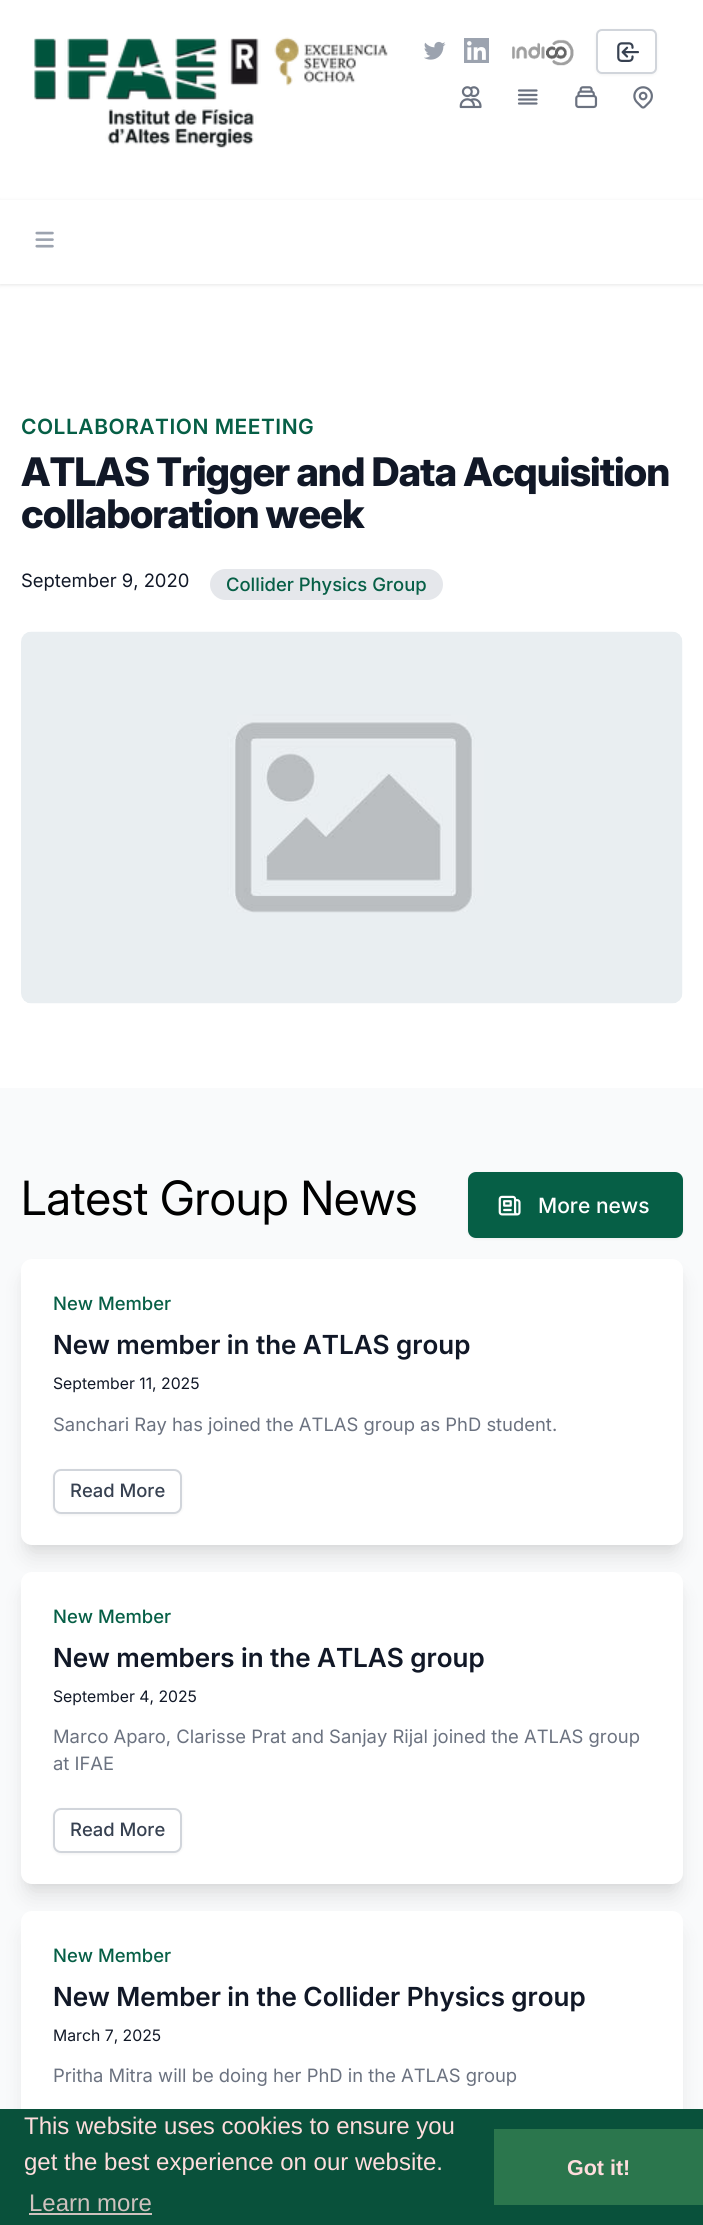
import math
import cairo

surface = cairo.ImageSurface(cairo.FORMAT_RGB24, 703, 2225)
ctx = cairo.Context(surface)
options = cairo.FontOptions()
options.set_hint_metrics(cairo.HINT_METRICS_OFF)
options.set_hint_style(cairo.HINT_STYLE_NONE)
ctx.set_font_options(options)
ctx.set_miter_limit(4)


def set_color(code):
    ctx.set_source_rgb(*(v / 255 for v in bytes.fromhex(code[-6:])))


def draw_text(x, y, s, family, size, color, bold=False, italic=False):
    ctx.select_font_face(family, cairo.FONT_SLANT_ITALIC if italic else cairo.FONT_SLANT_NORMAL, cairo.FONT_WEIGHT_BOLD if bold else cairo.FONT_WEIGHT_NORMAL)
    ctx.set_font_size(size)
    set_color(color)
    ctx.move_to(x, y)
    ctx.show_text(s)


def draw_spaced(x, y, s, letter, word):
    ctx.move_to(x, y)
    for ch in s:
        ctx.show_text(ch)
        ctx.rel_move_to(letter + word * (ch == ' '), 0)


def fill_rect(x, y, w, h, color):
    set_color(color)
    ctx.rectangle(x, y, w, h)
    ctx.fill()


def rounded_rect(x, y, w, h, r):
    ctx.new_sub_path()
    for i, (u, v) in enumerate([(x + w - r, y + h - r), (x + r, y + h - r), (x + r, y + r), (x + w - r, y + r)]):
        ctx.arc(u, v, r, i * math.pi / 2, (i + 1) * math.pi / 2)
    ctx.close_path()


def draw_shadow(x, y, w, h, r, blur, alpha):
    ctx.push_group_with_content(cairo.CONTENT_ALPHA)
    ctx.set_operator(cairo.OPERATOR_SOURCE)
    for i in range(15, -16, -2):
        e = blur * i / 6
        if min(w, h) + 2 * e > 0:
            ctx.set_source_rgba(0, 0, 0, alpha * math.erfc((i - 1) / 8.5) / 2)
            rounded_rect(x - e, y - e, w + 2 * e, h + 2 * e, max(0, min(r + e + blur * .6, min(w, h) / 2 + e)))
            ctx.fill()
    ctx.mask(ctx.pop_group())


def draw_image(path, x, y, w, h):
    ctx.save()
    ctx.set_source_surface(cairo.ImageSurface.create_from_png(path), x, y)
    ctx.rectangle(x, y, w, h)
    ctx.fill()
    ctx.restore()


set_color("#ffffff")
ctx.paint()
draw_image("assets/img1.png", 34, 37, 354, 111)
draw_image("assets/img2.png", 424, 41, 22, 19)
draw_image("assets/img3.png", 464, 38, 25, 25)
draw_image("assets/img4.png", 512, 39, 62, 27)
set_color("#000000")
draw_shadow(596, 30, 61, 45, 6, 1.5, 0.05)
set_color("#ffffff")
rounded_rect(597, 30, 59, 43, 5)
ctx.fill_preserve()
set_color("#d1d5db")
ctx.stroke()
draw_image("assets/img5.png", 617, 42, 22, 20)
draw_image("assets/img6.png", 459, 86, 23, 23)
ctx.new_path()
ctx.move_to(519, 90.5)
ctx.line_to(536.5, 90.5)
ctx.move_to(519, 95)
ctx.line_to(536.5, 95)
ctx.move_to(519, 99.5)
ctx.line_to(536.5, 99.5)
ctx.move_to(519, 103.5)
ctx.line_to(536.5, 103.5)
set_color("#6b7280")
ctx.set_line_width(2.2)
ctx.set_line_cap(cairo.LINE_CAP_ROUND)
ctx.set_line_join(cairo.LINE_JOIN_ROUND)
ctx.stroke()
draw_image("assets/img7.png", 575, 86, 23, 23)
draw_image("assets/img8.png", 633, 86, 20, 23)
ctx.save()
ctx.set_fill_rule(cairo.FILL_RULE_EVEN_ODD)
ctx.new_path()
ctx.move_to(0, 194)
ctx.line_to(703, 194)
ctx.line_to(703, 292)
ctx.line_to(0, 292)
ctx.close_path()
ctx.move_to(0, 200)
ctx.line_to(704, 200)
ctx.line_to(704, 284)
ctx.line_to(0, 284)
ctx.close_path()
ctx.clip()
set_color("#000000")
draw_shadow(0, 201, 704, 84, 0, 2, 0.1)
ctx.restore()
draw_image("assets/img9.png", 35, 231, 19, 17)
ctx.select_font_face("Inter SemiBold")
ctx.set_font_size(21)
set_color("#065f46")
draw_spaced(21, 434, "COLLABORATION MEETING", 0.5, 0)
ctx.select_font_face("Inter ExtraBold")
ctx.set_font_size(39.4)
set_color("#111827")
draw_spaced(21, 486, "ATLAS Trigger and Data Acquisition", -1, 0)
draw_spaced(21, 528, "collaboration week", -1, 0)
draw_text(21, 587, "September 9, 2020", "Inter", 18.4, "#111827")
set_color("#e5e7eb")
rounded_rect(210, 569, 233, 31, 15.5)
ctx.fill()
draw_text(226, 591, "Collider Physics Group", "Inter Medium", 18.4, "#065f46")
draw_image("assets/img10.png", 21, 631, 662, 373)
fill_rect(0, 1088, 703, 1021, "#f9fafb")
draw_text(21, 1215, "Latest Group News", "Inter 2", 47.25, "#000000")
set_color("#000000")
draw_shadow(468, 1173, 215, 66, 8, 1.5, 0.05)
set_color("#065f46")
rounded_rect(468, 1172, 215, 66, 8)
ctx.fill()
draw_image("assets/img11.png", 498, 1195, 23, 21)
draw_text(538, 1213, "More news", "Inter Medium", 21, "#ffffff")
set_color("#000000")
draw_shadow(24, 1268, 656, 280, 8, 4.5, 0.05)
draw_shadow(26, 1278, 652, 278, 6, 11, 0.1)
set_color("#ffffff")
rounded_rect(21, 1259, 662, 286, 11)
ctx.fill()
draw_text(53, 1310, "New Member", "Inter Medium", 18.4, "#065f46")
draw_text(53, 1354, "New member in the ATLAS group", "Inter 2 SemiBold", 26.25, "#111827")
draw_text(53, 1389, "September 11, 2025", "Inter", 15.75, "#111827")
draw_text(53, 1431, "Sanchari Ray has joined the ATLAS group as PhD student.", "Inter", 18.4, "#6b7280")
set_color("#000000")
draw_shadow(53, 1470, 129, 45, 8, 1.5, 0.05)
set_color("#ffffff")
rounded_rect(54, 1470, 127, 43, 7)
ctx.fill_preserve()
set_color("#d1d5db")
ctx.set_line_width(2)
ctx.set_line_cap(cairo.LINE_CAP_BUTT)
ctx.set_line_join(cairo.LINE_JOIN_MITER)
ctx.stroke()
draw_text(70, 1497, "Read More", "Inter Medium", 18.4, "#374151")
set_color("#000000")
draw_shadow(24, 1581, 656, 306, 8, 4.5, 0.05)
draw_shadow(26, 1592, 652, 303, 6, 11, 0.1)
set_color("#ffffff")
rounded_rect(21, 1572, 662, 312, 11)
ctx.fill()
draw_text(53, 1623, "New Member", "Inter Medium", 18.4, "#065f46")
draw_text(53, 1667, "New members in the ATLAS group", "Inter 2 SemiBold", 26.25, "#111827")
draw_text(53, 1702, "September 4, 2025", "Inter", 15.75, "#111827")
draw_text(53, 1743, "Marco Aparo, Clarisse Prat and Sanjay Rijal joined the ATLAS group", "Inter", 18.4, "#6b7280")
draw_text(53, 1770, "at IFAE", "Inter", 18.4, "#6b7280")
set_color("#000000")
draw_shadow(53, 1809, 129, 45, 8, 1.5, 0.05)
set_color("#ffffff")
rounded_rect(54, 1809, 127, 43, 7)
ctx.fill_preserve()
set_color("#d1d5db")
ctx.stroke()
draw_text(70, 1836, "Read More", "Inter Medium", 18.4, "#374151")
set_color("#000000")
draw_shadow(26, 1931, 652, 277, 6, 11, 0.1)
set_color("#ffffff")
rounded_rect(21, 1911, 662, 287, 11)
ctx.fill()
draw_text(53, 1962, "New Member", "Inter Medium", 18.4, "#065f46")
draw_text(53, 2006, "New Member in the Collider Physics group", "Inter 2 SemiBold", 26.25, "#111827")
draw_text(53, 2041, "March 7, 2025", "Inter", 15.75, "#111827")
draw_text(53, 2082, "Pritha Mitra will be doing her PhD in the ATLAS group", "Inter", 18.4, "#6b7280")
fill_rect(0, 2109, 703, 116, "#09513b")
draw_text(24, 2134, "This website uses cookies to ensure you", "Liberation Sans", 24, "#ffdddd")
draw_text(24, 2170, "get the best experience on our website.", "Liberation Sans", 24, "#ffdddd")
draw_text(29, 2211, "Learn more", "Liberation Sans", 24, "#cec1bd")
fill_rect(29, 2213, 123, 2, "#cec1bd")
fill_rect(494, 2129, 209, 76, "#2b764d")
draw_text(567, 2175, "Got it!", "Liberation Sans", 21.5, "#ffdddd", bold=True)
surface.write_to_png("output.png")
